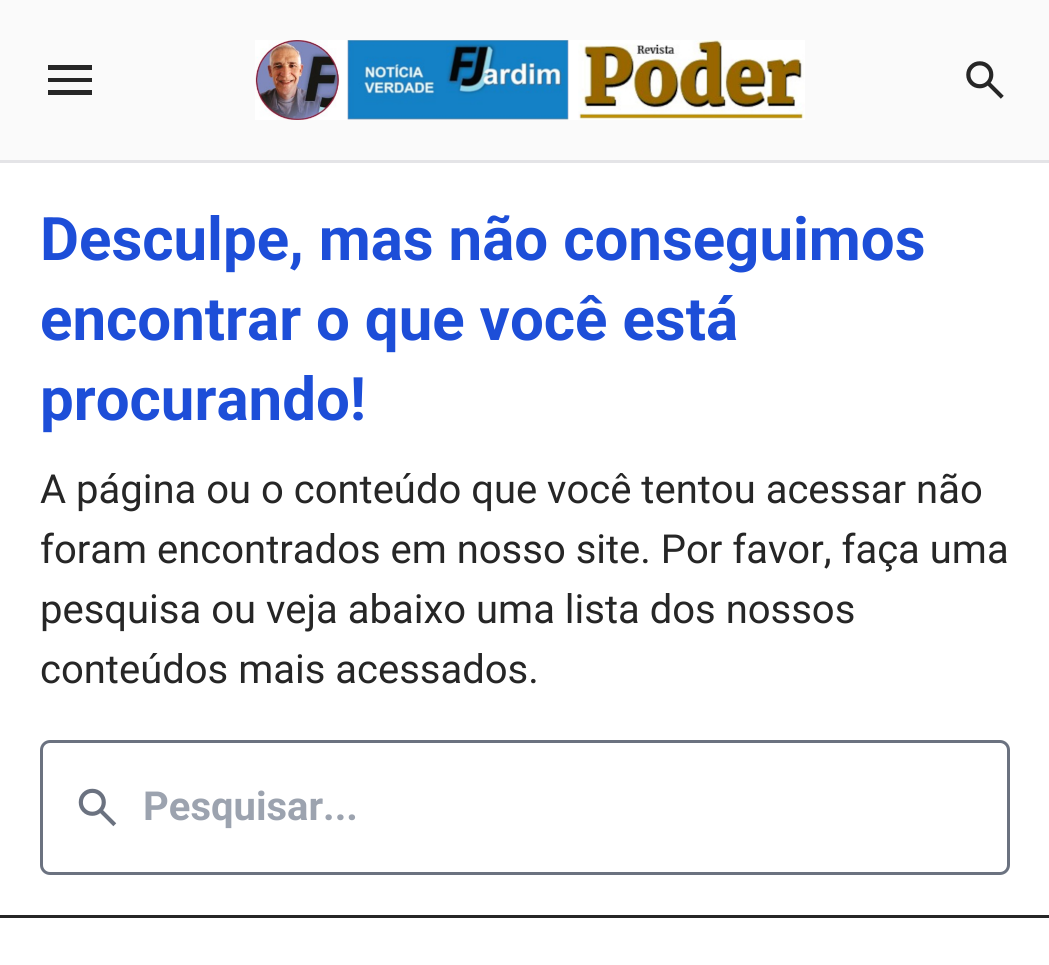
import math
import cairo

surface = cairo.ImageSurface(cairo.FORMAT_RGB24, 1049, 965)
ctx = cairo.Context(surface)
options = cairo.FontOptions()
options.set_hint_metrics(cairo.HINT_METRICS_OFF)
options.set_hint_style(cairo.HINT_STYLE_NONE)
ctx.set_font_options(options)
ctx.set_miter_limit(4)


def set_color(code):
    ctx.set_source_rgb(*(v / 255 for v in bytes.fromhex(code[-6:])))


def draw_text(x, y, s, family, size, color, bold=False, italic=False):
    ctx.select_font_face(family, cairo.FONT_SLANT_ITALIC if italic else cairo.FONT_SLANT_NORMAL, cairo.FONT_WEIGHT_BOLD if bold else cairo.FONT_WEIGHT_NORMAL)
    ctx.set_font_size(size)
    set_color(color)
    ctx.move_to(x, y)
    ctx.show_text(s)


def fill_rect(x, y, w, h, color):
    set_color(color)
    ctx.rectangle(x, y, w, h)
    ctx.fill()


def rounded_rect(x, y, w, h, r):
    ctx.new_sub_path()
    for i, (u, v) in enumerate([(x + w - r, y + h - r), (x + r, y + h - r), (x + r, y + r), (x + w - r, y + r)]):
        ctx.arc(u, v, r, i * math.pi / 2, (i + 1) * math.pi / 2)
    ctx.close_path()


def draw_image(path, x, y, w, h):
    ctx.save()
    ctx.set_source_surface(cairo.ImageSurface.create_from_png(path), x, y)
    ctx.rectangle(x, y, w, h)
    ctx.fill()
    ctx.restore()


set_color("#ffffff")
ctx.paint()
fill_rect(0, 0, 1049, 160, "#fafafa")
fill_rect(0, 160, 1049, 3, "#e4e4e7")
set_color("#262626")
ctx.new_path()
ctx.move_to(48, 95)
ctx.line_to(48, 90)
ctx.line_to(92, 90)
ctx.line_to(92, 95)
ctx.close_path()
ctx.move_to(48, 82)
ctx.line_to(48, 78)
ctx.line_to(92, 78)
ctx.line_to(92, 82)
ctx.close_path()
ctx.move_to(48, 70)
ctx.line_to(48, 65)
ctx.line_to(92, 65)
ctx.line_to(92, 70)
ctx.close_path()
ctx.fill()
draw_image("assets/img1.png", 255, 40, 550, 80)
draw_image("assets/img2.png", 966, 61, 38, 38)
draw_text(40, 260, "Desculpe, mas não conseguimos", "Roboto", 60, "#1d4ed8", bold=True)
draw_text(40, 340, "encontrar o que você está", "Roboto", 60, "#1d4ed8", bold=True)
draw_text(40, 420, "procurando!", "Roboto", 60, "#1d4ed8", bold=True)
draw_text(40, 503, "A página ou o conteúdo que você tentou acessar não", "Roboto", 40, "#262626")
draw_text(40, 563, "foram encontrados em nosso site. Por favor, faça uma", "Roboto", 40, "#262626")
draw_text(40, 623, "pesquisa ou veja abaixo uma lista dos nossos", "Roboto", 40, "#262626")
draw_text(40, 683, "conteúdos mais acessados.", "Roboto", 40, "#262626")
rounded_rect(41.5, 741.5, 967, 132, 8.5)
set_color("#6b7280")
ctx.set_line_width(3)
ctx.stroke()
draw_image("assets/img3.png", 78, 788, 39, 39)
draw_text(143, 820, "Pesquisar...", "Roboto", 40, "#9ca3af", bold=True)
fill_rect(0, 915, 1049, 3, "#262626")
surface.write_to_png("output.png")
